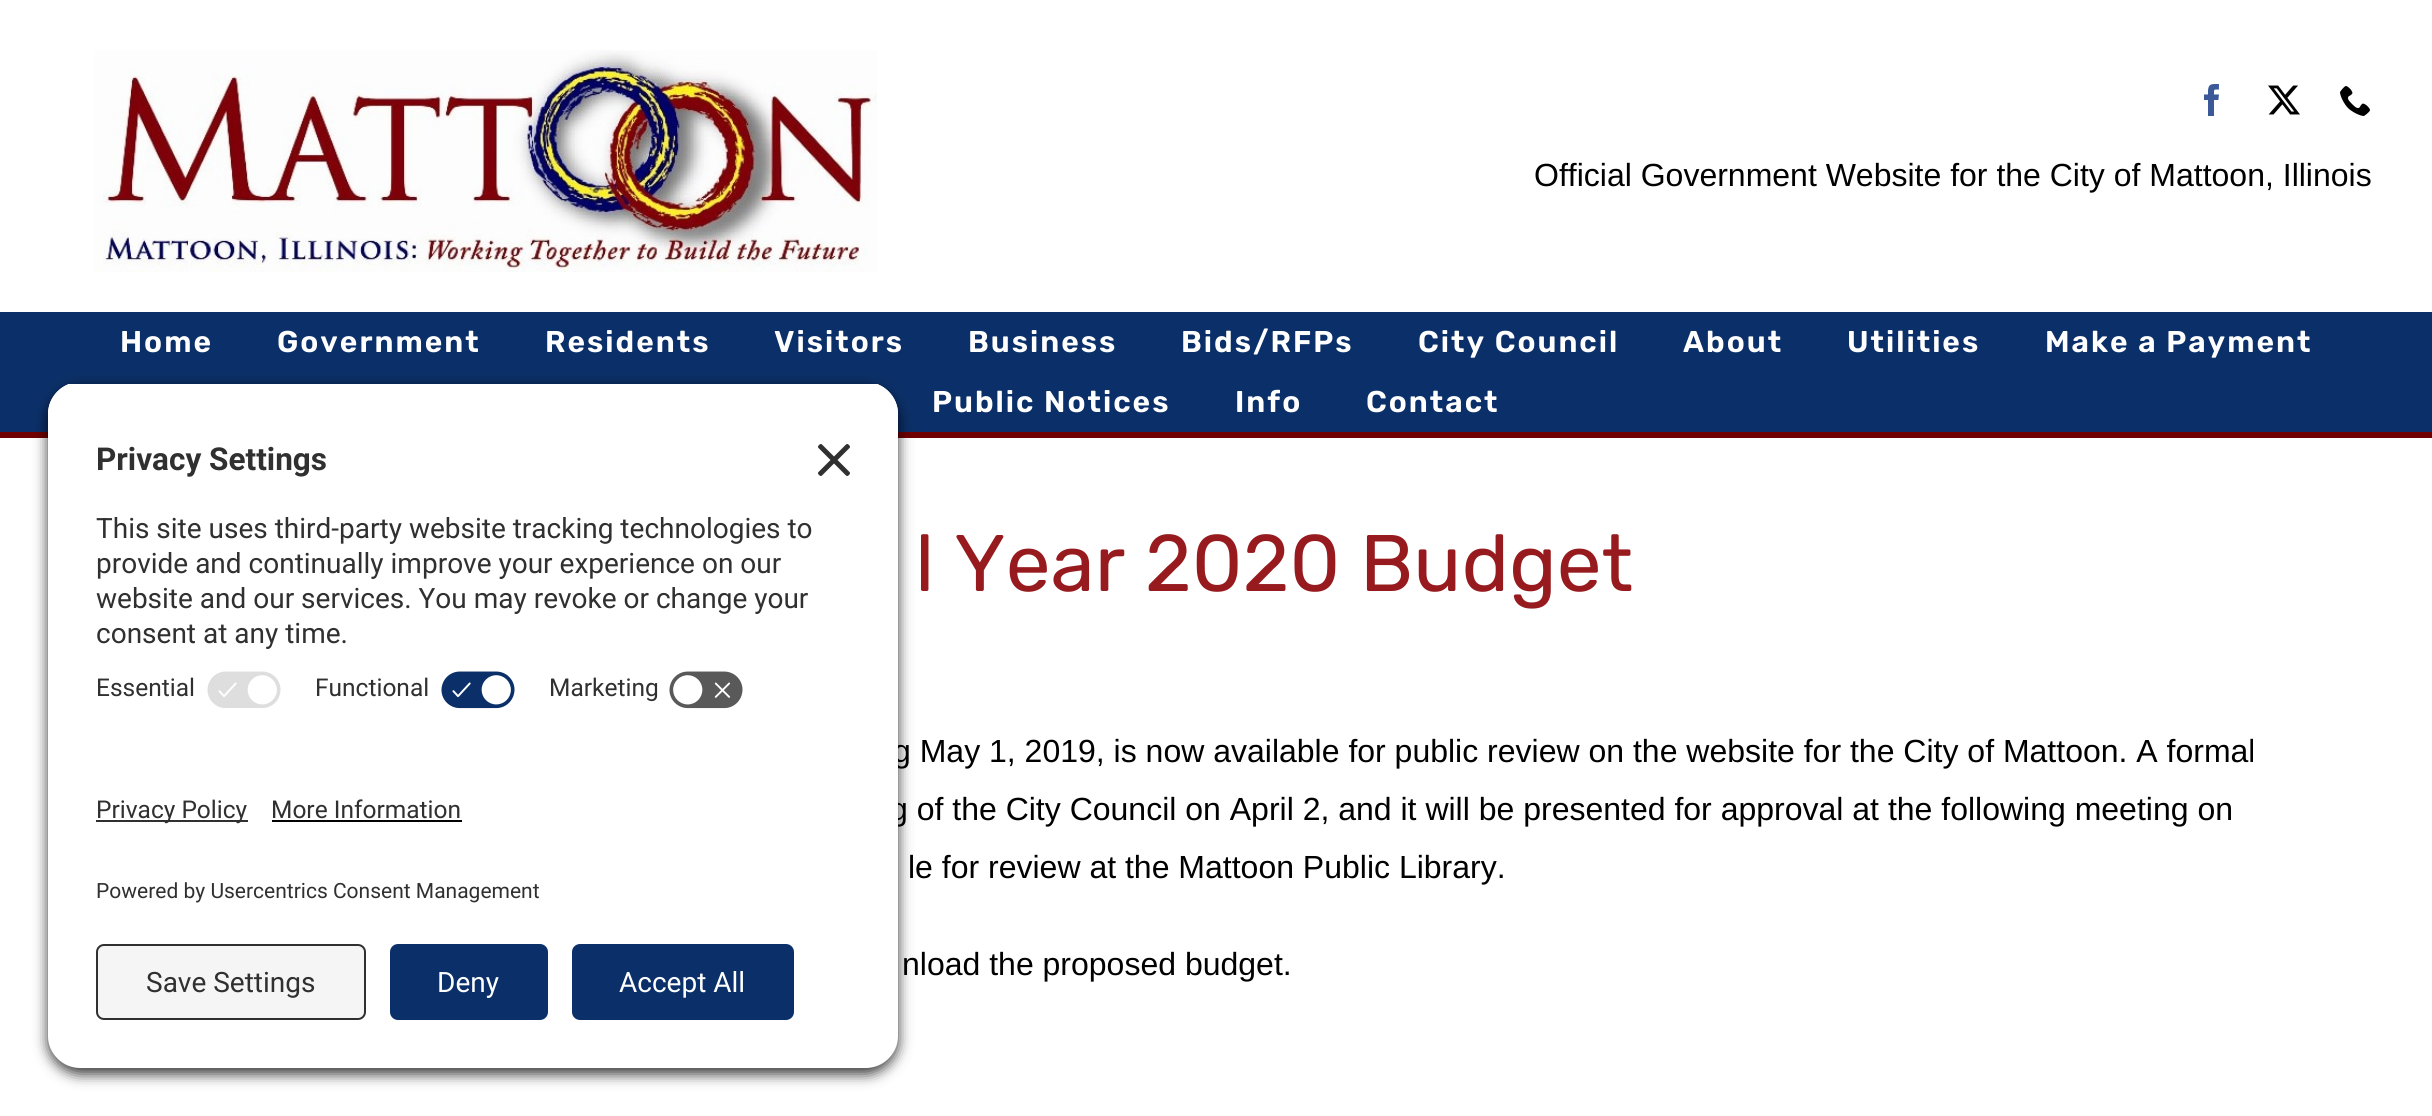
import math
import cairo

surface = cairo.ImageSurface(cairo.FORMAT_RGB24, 2432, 1116)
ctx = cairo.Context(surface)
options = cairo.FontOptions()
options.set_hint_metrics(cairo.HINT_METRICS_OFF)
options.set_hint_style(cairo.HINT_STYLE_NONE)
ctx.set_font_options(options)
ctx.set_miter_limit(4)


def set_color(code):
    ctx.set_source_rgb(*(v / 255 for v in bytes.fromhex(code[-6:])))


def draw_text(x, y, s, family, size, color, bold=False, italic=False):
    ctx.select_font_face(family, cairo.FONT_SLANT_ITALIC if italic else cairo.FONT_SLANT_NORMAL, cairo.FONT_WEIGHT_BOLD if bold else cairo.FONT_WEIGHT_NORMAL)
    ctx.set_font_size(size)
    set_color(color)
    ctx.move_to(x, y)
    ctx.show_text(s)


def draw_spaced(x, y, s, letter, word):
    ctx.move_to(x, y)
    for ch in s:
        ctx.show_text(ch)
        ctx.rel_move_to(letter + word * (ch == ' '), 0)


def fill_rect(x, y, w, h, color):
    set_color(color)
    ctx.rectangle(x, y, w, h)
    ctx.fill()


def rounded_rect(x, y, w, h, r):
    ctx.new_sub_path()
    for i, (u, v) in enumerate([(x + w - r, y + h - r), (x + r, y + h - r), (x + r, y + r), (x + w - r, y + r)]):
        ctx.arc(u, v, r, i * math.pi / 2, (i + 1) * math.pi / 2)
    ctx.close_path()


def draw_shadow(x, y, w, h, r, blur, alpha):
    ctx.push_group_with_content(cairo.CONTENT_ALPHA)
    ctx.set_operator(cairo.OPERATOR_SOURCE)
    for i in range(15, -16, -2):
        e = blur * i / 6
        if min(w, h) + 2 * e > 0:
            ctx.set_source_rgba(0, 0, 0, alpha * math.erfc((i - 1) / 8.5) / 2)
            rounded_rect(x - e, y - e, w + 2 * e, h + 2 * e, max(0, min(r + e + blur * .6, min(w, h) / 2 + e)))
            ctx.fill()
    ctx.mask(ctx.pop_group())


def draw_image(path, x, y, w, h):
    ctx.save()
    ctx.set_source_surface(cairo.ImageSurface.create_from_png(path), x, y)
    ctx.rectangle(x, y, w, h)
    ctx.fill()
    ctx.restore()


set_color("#ffffff")
ctx.paint()
draw_image("assets/img1.png", 94, 50, 783, 222)
draw_image("assets/img2.png", 2204, 84, 15, 32)
draw_image("assets/img3.png", 2268, 85, 32, 30)
draw_image("assets/img4.png", 2340, 86, 30, 30)
draw_text(1534, 186, "Official Government Website for the City of Mattoon, Illinois", "Liberation Sans", 32, "#000000")
fill_rect(0, 312, 2432, 120, "#0b3069")
fill_rect(0, 432, 2432, 6, "#700000")
ctx.select_font_face("Rubik SemiBold")
ctx.set_font_size(30)
set_color("#ffffff")
draw_spaced(120, 352, "Home", 2, 0)
draw_spaced(277, 352, "Government", 2, 0)
draw_spaced(545, 352, "Residents", 2, 0)
draw_spaced(774, 352, "Visitors", 2, 0)
draw_spaced(968, 352, "Business", 2, 0)
draw_spaced(1181, 352, "Bids/RFPs", 2, 0)
draw_spaced(1418, 352, "City Council", 2, 0)
draw_spaced(1683, 352, "About", 2, 0)
draw_spaced(1847, 352, "Utilities", 2, 0)
draw_spaced(2045, 352, "Make a Payment", 2, 0)
draw_spaced(932, 412, "Public Notices", 2, 0)
draw_spaced(1235, 412, "Info", 2, 0)
draw_spaced(1366, 412, "Contact", 2, 0)
draw_text(915, 591, "l Year 2020 Budget", "Rubik", 80, "#971b1e")
draw_text(893, 762, "g May 1, 2019, is now available for public review on the website for the City of Mattoon. A formal", "Liberation Sans", 32, "#000000")
draw_text(890, 820, "g of the City Council on April 2, and it will be presented for approval at the following meeting on", "Liberation Sans", 32, "#000000")
draw_text(908, 878, "le for review at the Mattoon Public Library.", "Liberation Sans", 32, "#000000")
draw_text(902, 975, "nload the proposed budget.", "Liberation Sans", 32, "#000000")
set_color("#000000")
draw_shadow(48, 388, 850, 686, 32, 7, 0.8)
ctx.save()
ctx.new_path()
ctx.move_to(80, 382)
ctx.line_to(866, 382)
ctx.curve_to(883.5, 382, 898, 396.5, 898, 414)
ctx.line_to(898, 740)
ctx.line_to(48, 740)
ctx.line_to(48, 414)
ctx.curve_to(48, 396.5, 62.5, 382, 80, 382)
ctx.close_path()
ctx.clip()
fill_rect(48, 384, 850, 356, "#ffffff")
fill_rect(48, 384, 850, 276, "#ffffff")
ctx.restore()
draw_text(96, 470, "Privacy Settings", "Roboto", 31.5, "#303030", bold=True)
draw_image("assets/img5.png", 818, 444, 32, 32)
draw_text(96, 538, "This site uses third-party website tracking technologies to", "Roboto", 28, "#303030")
draw_text(96, 573, "provide and continually improve your experience on our", "Roboto", 28, "#303030")
draw_text(96, 608, "website and our services. You may revoke or change your", "Roboto", 28, "#303030")
draw_text(96, 643, "consent at any time.", "Roboto", 28, "#303030")
draw_text(96, 696, "Essential", "Roboto", 24.5, "#303030")
draw_image("assets/img6.png", 207, 671, 74, 37)
draw_text(315, 696, "Functional", "Roboto", 24.5, "#303030")
draw_image("assets/img7.png", 441, 671, 74, 38)
draw_text(549, 696, "Marketing", "Roboto", 24.5, "#303030")
draw_image("assets/img8.png", 669, 671, 74, 38)
set_color("#ffffff")
ctx.new_path()
ctx.move_to(48, 740)
ctx.line_to(898, 740)
ctx.line_to(898, 1036)
ctx.curve_to(898, 1053.5, 883.5, 1068, 866, 1068)
ctx.line_to(80, 1068)
ctx.curve_to(62.5, 1068, 48, 1053.5, 48, 1036)
ctx.close_path()
ctx.fill()
fill_rect(96, 820, 152, 2, "#303030")
draw_text(96, 818, "Privacy Policy", "Roboto", 24.5, "#303030")
draw_text(271, 818, "More Information", "Roboto", 24.5, "#303030")
fill_rect(272, 820, 190, 2, "#000000")
draw_text(96, 898, "Powered by Usercentrics Consent Management", "Roboto", 21, "#303030")
set_color("#f5f5f5")
rounded_rect(97, 945, 268, 74, 7)
ctx.fill_preserve()
set_color("#303030")
ctx.stroke()
draw_text(146, 992, "Save Settings", "Roboto", 28, "#303030")
set_color("#0b3069")
rounded_rect(390, 944, 158, 76, 8)
ctx.fill()
draw_text(437, 992, "Deny", "Roboto", 28, "#ffffff")
set_color("#0b3069")
rounded_rect(572, 944, 222, 76, 8)
ctx.fill()
draw_text(619, 992, "Accept All", "Roboto", 28, "#ffffff")
surface.write_to_png("output.png")
